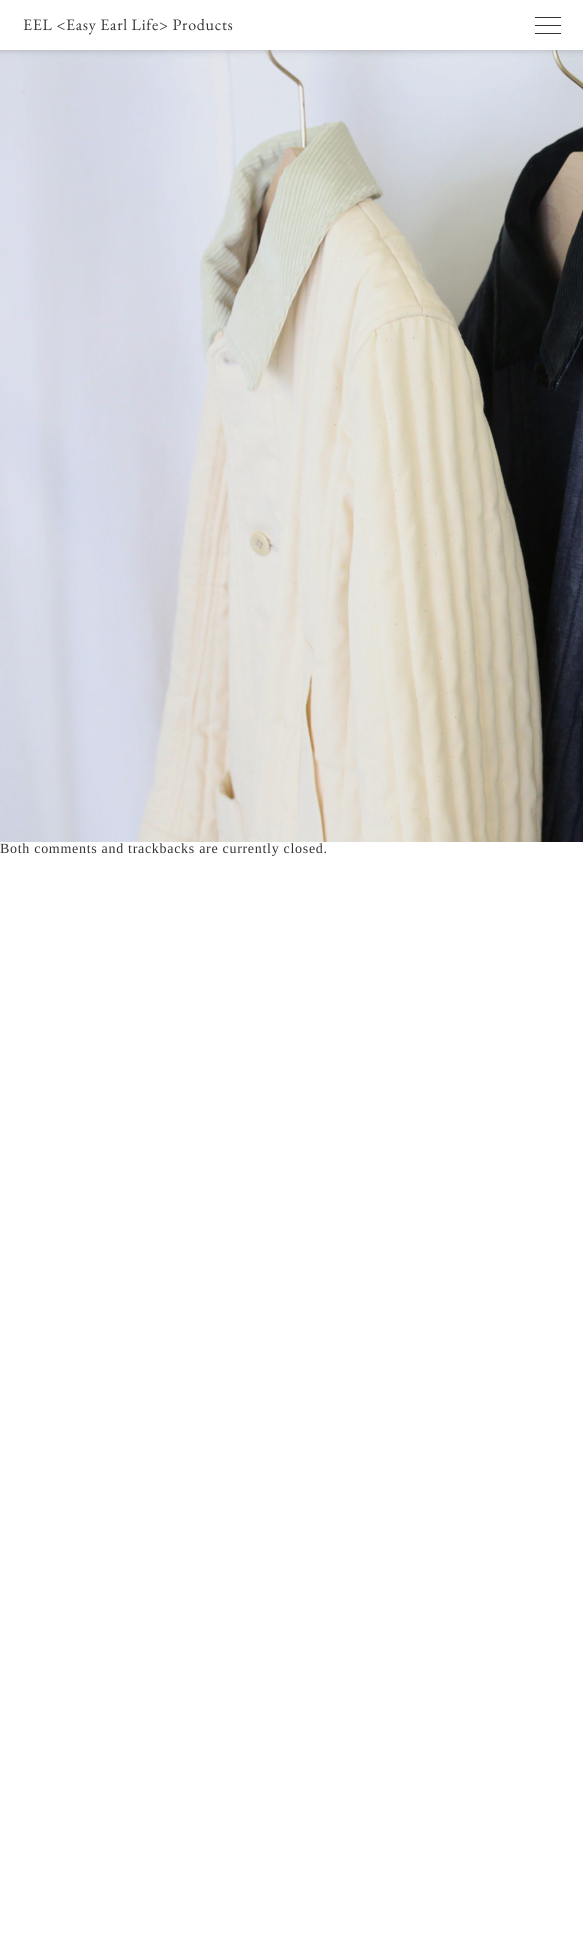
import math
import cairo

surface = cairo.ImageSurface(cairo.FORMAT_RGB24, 583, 1933)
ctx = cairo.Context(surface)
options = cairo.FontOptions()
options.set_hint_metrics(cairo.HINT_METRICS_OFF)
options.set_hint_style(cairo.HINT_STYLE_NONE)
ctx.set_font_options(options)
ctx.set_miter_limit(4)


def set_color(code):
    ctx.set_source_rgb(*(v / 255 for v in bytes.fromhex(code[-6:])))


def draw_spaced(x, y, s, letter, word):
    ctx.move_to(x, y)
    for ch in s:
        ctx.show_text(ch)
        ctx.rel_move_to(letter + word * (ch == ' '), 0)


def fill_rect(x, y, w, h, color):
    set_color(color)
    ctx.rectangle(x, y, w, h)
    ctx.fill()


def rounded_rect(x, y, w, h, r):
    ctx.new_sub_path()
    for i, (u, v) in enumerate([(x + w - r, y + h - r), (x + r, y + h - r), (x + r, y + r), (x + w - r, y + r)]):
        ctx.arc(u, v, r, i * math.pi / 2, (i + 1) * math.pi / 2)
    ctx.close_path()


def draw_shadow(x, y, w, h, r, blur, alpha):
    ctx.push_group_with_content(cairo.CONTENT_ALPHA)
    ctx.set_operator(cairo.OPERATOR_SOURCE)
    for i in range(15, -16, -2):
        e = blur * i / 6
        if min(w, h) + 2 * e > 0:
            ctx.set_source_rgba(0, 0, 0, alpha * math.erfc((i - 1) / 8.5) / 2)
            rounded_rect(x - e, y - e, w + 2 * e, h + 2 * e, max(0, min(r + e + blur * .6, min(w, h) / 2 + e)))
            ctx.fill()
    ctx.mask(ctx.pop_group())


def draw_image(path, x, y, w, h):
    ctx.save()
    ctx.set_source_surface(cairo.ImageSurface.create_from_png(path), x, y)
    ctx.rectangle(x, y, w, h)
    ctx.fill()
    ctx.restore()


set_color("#ffffff")
ctx.paint()
draw_image("assets/img1.png", 0, 50, 583, 792)
set_color("#000000")
draw_shadow(0, 0, 583, 50, 0, 3.5, 0.2)
fill_rect(0, 0, 583, 50, "#ffffff")
ctx.select_font_face("EB Garamond")
ctx.set_font_size(16)
set_color("#333333")
draw_spaced(23, 30, "EEL <Easy Earl Life> Products", 0.7, 0)
fill_rect(535, 25, 26, 1, "#333333")
fill_rect(535, 17, 26, 1, "#333333")
fill_rect(535, 33, 26, 1, "#333333")
ctx.select_font_face("Liberation Serif")
ctx.set_font_size(14)
draw_spaced(0, 853, "Both comments and trackbacks are currently closed.", 0.7, 0)
surface.write_to_png("output.png")
